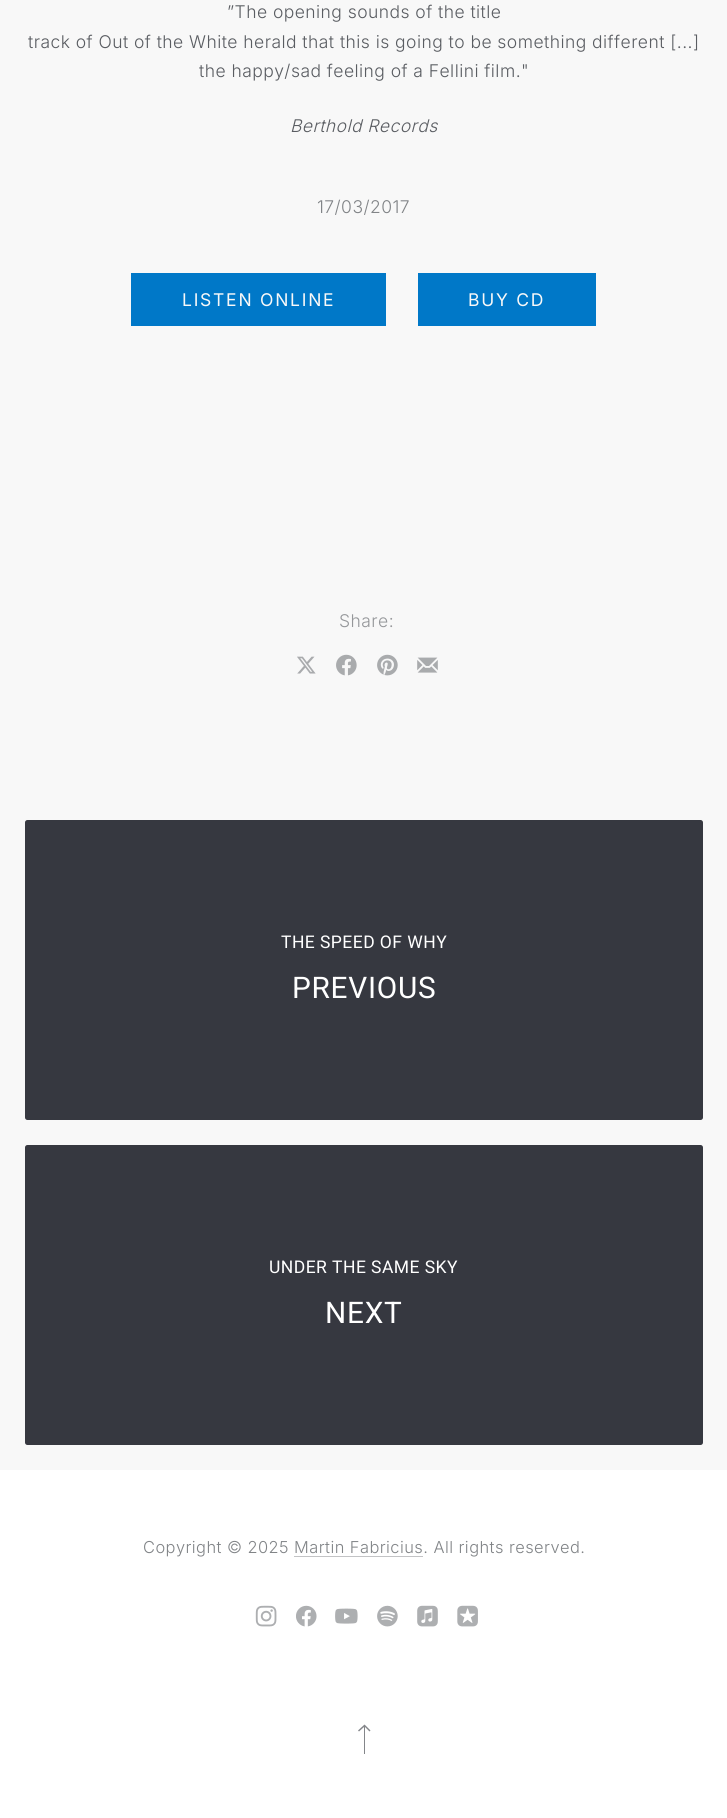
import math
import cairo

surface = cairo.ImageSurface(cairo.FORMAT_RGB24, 727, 1818)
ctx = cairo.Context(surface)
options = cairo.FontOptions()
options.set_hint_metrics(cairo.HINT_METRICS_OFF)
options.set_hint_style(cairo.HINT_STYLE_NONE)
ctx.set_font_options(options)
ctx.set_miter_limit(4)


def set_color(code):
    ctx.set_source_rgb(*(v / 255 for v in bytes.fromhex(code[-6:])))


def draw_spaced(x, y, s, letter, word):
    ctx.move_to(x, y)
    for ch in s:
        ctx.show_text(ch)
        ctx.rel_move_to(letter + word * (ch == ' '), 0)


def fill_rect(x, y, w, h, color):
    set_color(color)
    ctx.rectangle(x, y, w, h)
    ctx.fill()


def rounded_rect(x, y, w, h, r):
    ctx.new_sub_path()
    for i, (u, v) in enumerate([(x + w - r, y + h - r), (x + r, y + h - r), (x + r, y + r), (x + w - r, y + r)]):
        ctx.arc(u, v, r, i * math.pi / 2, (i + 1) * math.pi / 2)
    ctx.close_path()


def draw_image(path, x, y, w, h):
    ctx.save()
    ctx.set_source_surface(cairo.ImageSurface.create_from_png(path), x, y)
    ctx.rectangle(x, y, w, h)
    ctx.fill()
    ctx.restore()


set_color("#f8f8f8")
ctx.paint()
ctx.select_font_face("Inter Light")
ctx.set_font_size(17.5)
set_color("#5a5d62")
draw_spaced(227, 18, "”The opening sounds of the title", 0.45, 0)
draw_spaced(28, 48, "track of Out of the White herald that this is going to be something different [...]", 0.45, 0)
draw_spaced(199, 77, "the happy/sad feeling of a Fellini film.\"", 0.45, 0)
ctx.select_font_face("Inter Light", cairo.FONT_SLANT_ITALIC)
draw_spaced(290, 132, "Berthold Records", 0.45, 0)
ctx.select_font_face("Inter Light")
set_color("#818487")
draw_spaced(317, 213, "17/03/2017", 0.45, 0)
fill_rect(131, 273, 255, 53, "#0078c8")
ctx.select_font_face("Inter")
set_color("#f8f8f8")
draw_spaced(182, 306, "LISTEN ONLINE", 1.75, 0)
fill_rect(418, 273, 178, 53, "#0078c8")
set_color("#f8f8f8")
draw_spaced(468, 306, "BUY CD", 1.75, 0)
ctx.select_font_face("Inter Light")
set_color("#95979a")
draw_spaced(339, 627, "Share:", 0.45, 0)
draw_image("assets/img1.png", 297, 656, 19, 18)
draw_image("assets/img2.png", 336, 654, 21, 22)
draw_image("assets/img3.png", 377, 654, 21, 22)
draw_image("assets/img4.png", 417, 657, 21, 16)
set_color("#363840")
rounded_rect(25, 820, 678, 300, 2.5)
ctx.fill()
rounded_rect(25.5, 820.5, 677, 299, 2)
ctx.set_source_rgba(0.196, 0.212, 0.235, 0.1)
ctx.set_line_width(1)
ctx.stroke()
ctx.select_font_face("Heebo")
set_color("#ffffff")
draw_spaced(281, 948, "THE SPEED OF WHY", 0.45, 0)
ctx.set_font_size(29.75)
draw_spaced(292, 998, "PREVIOUS", 0.75, 0)
set_color("#363840")
rounded_rect(25, 1145, 678, 300, 2.5)
ctx.fill()
rounded_rect(25.5, 1145.5, 677, 299, 2)
ctx.set_source_rgba(0.196, 0.212, 0.235, 0.1)
ctx.stroke()
ctx.set_font_size(17.5)
set_color("#ffffff")
draw_spaced(269, 1273, "UNDER THE SAME SKY", 0.45, 0)
ctx.set_font_size(29.75)
draw_spaced(325, 1323, "NEXT", 0.75, 0)
fill_rect(0, 1470, 727, 348, "#ffffff")
ctx.select_font_face("Inter Light")
ctx.set_font_size(16.4)
set_color("#818487")
draw_spaced(143, 1553, "Copyright © 2025 Martin Fabricius. All rights reserved.", 0.45, 0)
fill_rect(294, 1556, 129, 1, "#c2c3c5")
draw_image("assets/img5.png", 255, 1605, 22, 22)
draw_image("assets/img6.png", 296, 1605, 21, 22)
draw_image("assets/img7.png", 335, 1608, 23, 16)
draw_image("assets/img8.png", 377, 1605, 21, 22)
draw_image("assets/img9.png", 417, 1605, 21, 22)
draw_image("assets/img10.png", 457, 1605, 21, 22)
set_color("#84868a")
ctx.new_path()
ctx.move_to(364.5, 1724.5)
ctx.line_to(358, 1730.5)
ctx.line_to(359, 1731.5)
ctx.line_to(364, 1727)
ctx.line_to(364, 1754)
ctx.line_to(365, 1754)
ctx.line_to(365, 1727)
ctx.line_to(369.5, 1731.5)
ctx.line_to(370.5, 1730.5)
ctx.close_path()
ctx.fill()
surface.write_to_png("output.png")
